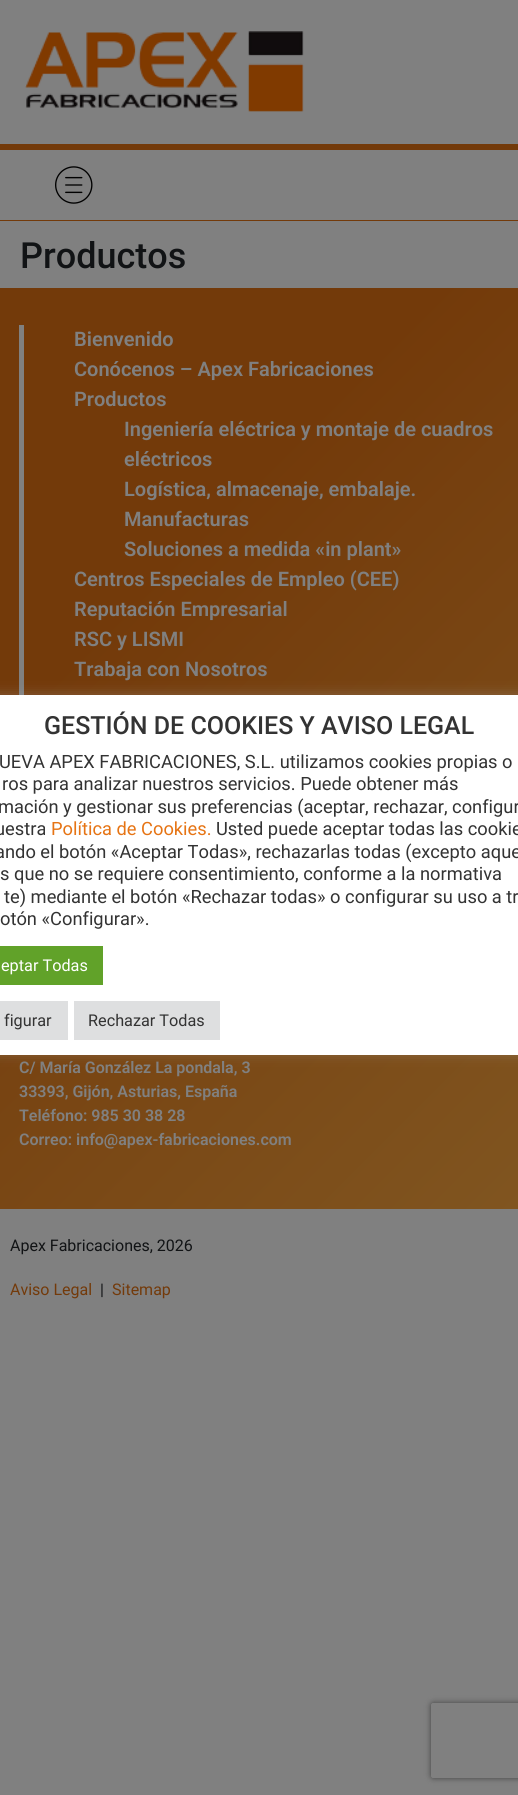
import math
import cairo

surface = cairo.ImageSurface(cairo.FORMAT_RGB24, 518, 1795)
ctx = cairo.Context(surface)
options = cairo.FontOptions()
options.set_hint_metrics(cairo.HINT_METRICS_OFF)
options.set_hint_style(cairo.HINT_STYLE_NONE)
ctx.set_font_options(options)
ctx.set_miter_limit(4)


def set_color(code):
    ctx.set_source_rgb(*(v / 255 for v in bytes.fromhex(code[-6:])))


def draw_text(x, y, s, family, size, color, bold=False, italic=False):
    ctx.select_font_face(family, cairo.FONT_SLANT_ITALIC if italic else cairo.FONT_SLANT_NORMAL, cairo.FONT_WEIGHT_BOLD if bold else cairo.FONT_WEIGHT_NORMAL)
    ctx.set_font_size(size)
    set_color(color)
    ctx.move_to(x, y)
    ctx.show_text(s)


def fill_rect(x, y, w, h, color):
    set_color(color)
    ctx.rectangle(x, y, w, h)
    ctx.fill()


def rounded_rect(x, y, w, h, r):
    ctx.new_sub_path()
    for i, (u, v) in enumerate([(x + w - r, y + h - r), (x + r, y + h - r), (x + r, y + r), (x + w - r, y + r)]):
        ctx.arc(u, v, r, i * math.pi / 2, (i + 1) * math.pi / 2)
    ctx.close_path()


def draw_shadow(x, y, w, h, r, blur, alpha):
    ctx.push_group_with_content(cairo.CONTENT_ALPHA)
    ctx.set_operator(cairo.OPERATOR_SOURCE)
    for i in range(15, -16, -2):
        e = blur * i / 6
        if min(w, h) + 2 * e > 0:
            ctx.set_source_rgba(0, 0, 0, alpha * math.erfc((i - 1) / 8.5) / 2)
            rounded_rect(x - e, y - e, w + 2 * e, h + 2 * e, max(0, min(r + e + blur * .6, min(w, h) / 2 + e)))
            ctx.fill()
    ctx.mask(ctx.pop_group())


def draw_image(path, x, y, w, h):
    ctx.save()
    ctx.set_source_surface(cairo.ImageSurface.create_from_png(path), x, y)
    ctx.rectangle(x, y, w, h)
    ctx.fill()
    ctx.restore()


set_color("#808080")
ctx.paint()
draw_image("assets/img1.png", 25, 31, 279, 81)
fill_rect(0, 144, 518, 6, "#733a0a")
fill_rect(0, 220, 518, 1, "#733a0a")
draw_image("assets/img2.png", 55, 166, 38, 38)
draw_text(20, 268, "Productos", "Roboto Medium", 36, "#111315")
gradient = cairo.LinearGradient(-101, 388, 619, 1108)
gradient.add_color_stop_rgba(0, 0.451, 0.227, 0.039, 1)
gradient.add_color_stop_rgba(0.3, 0.451, 0.227, 0.039, 1)
gradient.add_color_stop_rgba(1, 0.502, 0.333, 0.125, 1)
ctx.set_source(gradient)
ctx.rectangle(0, 288, 518, 921)
ctx.fill()
fill_rect(19, 325, 5, 370, "#808080")
draw_text(74, 346, "Bienvenido", "Roboto SemiBold", 20, "#808080")
draw_text(74, 376, "Conócenos – Apex Fabricaciones", "Roboto SemiBold", 20, "#808080")
draw_text(74, 406, "Productos", "Roboto SemiBold", 20, "#808080")
draw_text(124, 436, "Ingeniería eléctrica y montaje de cuadros", "Roboto SemiBold", 20, "#808080")
draw_text(124, 466, "eléctricos", "Roboto SemiBold", 20, "#808080")
draw_text(124, 496, "Logística, almacenaje, embalaje.", "Roboto SemiBold", 20, "#808080")
draw_text(124, 526, "Manufacturas", "Roboto SemiBold", 20, "#808080")
draw_text(124, 556, "Soluciones a medida «in plant»", "Roboto SemiBold", 20, "#808080")
draw_text(74, 586, "Centros Especiales de Empleo (CEE)", "Roboto SemiBold", 20, "#808080")
draw_text(74, 616, "Reputación Empresarial", "Roboto SemiBold", 20, "#808080")
draw_text(74, 646, "RSC y LISMI", "Roboto SemiBold", 20, "#808080")
draw_text(74, 676, "Trabaja con Nosotros", "Roboto SemiBold", 20, "#808080")
draw_text(19, 1073, "C/ María González La pondala, 3", "Roboto SemiBold", 16, "#808080")
draw_text(19, 1097, "33393, Gijón, Asturias, España", "Roboto SemiBold", 16, "#808080")
draw_text(19, 1121, "Teléfono: 985 30 38 28", "Roboto SemiBold", 16, "#808080")
draw_text(19, 1145, "Correo: info@apex-fabricaciones.com", "Roboto SemiBold", 16, "#808080")
draw_text(10, 1251, "Apex Fabricaciones, 2026", "Roboto", 16, "#111315")
draw_text(10, 1295, "Aviso Legal", "Roboto", 16, "#733a0a")
draw_text(100, 1295, "|", "Roboto", 16, "#111315")
draw_text(112, 1295, "Sitemap", "Roboto", 16, "#733a0a")
set_color("#acabab")
draw_shadow(-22, 694, 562, 360, 4, 6, 0.3)
fill_rect(0, 695, 518, 360, "#ffffff")
draw_text(44, 734, "GESTIÓN DE COOKIES Y AVISO LEGAL", "Roboto Medium", 25, "#333333")
draw_text(-1, 768, "UEVA APEX FABRICACIONES, S.L. utilizamos cookies propias o", "Roboto", 18.3, "#333333")
draw_text(2, 790, "ros para analizar nuestros servicios. Puede obtener más", "Roboto", 18.3, "#333333")
draw_text(-2, 813, "mación y gestionar sus preferencias (aceptar, rechazar, configur", "Roboto", 18.3, "#333333")
draw_text(-5, 835, "uestra", "Roboto", 18.3, "#333333")
draw_text(51, 835, "Política de Cookies.", "Roboto", 18.3, "#e67414")
draw_text(216, 835, "Usted puede aceptar todas las cookie", "Roboto", 18.3, "#333333")
draw_text(-5, 858, "ando el botón «Aceptar Todas», rechazarlas todas (excepto aque", "Roboto", 18.3, "#333333")
draw_text(0, 880, "s que no se requiere consentimiento, conforme a la normativa", "Roboto", 18.3, "#333333")
draw_text(4, 903, "te) mediante el botón «Rechazar todas» o configurar su uso a tr", "Roboto", 18.3, "#333333")
draw_text(0, 925, "otón «Configurar».", "Roboto", 18.3, "#333333")
fill_rect(0, 946, 103, 39, "#61a229")
draw_text(1, 971, "eptar Todas", "Roboto", 16.25, "#ffffff")
fill_rect(0, 1001, 68, 39, "#dedfe0")
draw_text(4, 1026, "figurar", "Roboto", 16.25, "#333333")
fill_rect(74, 1001, 146, 39, "#dedfe0")
draw_text(88, 1026, "Rechazar Todas", "Roboto", 16.25, "#333333")
ctx.save()
ctx.set_fill_rule(cairo.FILL_RULE_EVEN_ODD)
ctx.new_path()
ctx.move_to(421, 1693)
ctx.line_to(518, 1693)
ctx.line_to(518, 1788)
ctx.line_to(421, 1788)
ctx.close_path()
ctx.move_to(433.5, 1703)
ctx.line_to(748.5, 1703)
ctx.curve_to(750, 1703, 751, 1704, 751, 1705.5)
ctx.line_to(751, 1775.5)
ctx.curve_to(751, 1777, 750, 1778, 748.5, 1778)
ctx.line_to(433.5, 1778)
ctx.curve_to(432, 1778, 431, 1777, 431, 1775.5)
ctx.line_to(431, 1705.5)
ctx.curve_to(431, 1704, 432, 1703, 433.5, 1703)
ctx.close_path()
ctx.clip()
set_color("#404040")
draw_shadow(431, 1703, 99, 75, 2.5, 3, 1)
ctx.restore()
surface.write_to_png("output.png")
